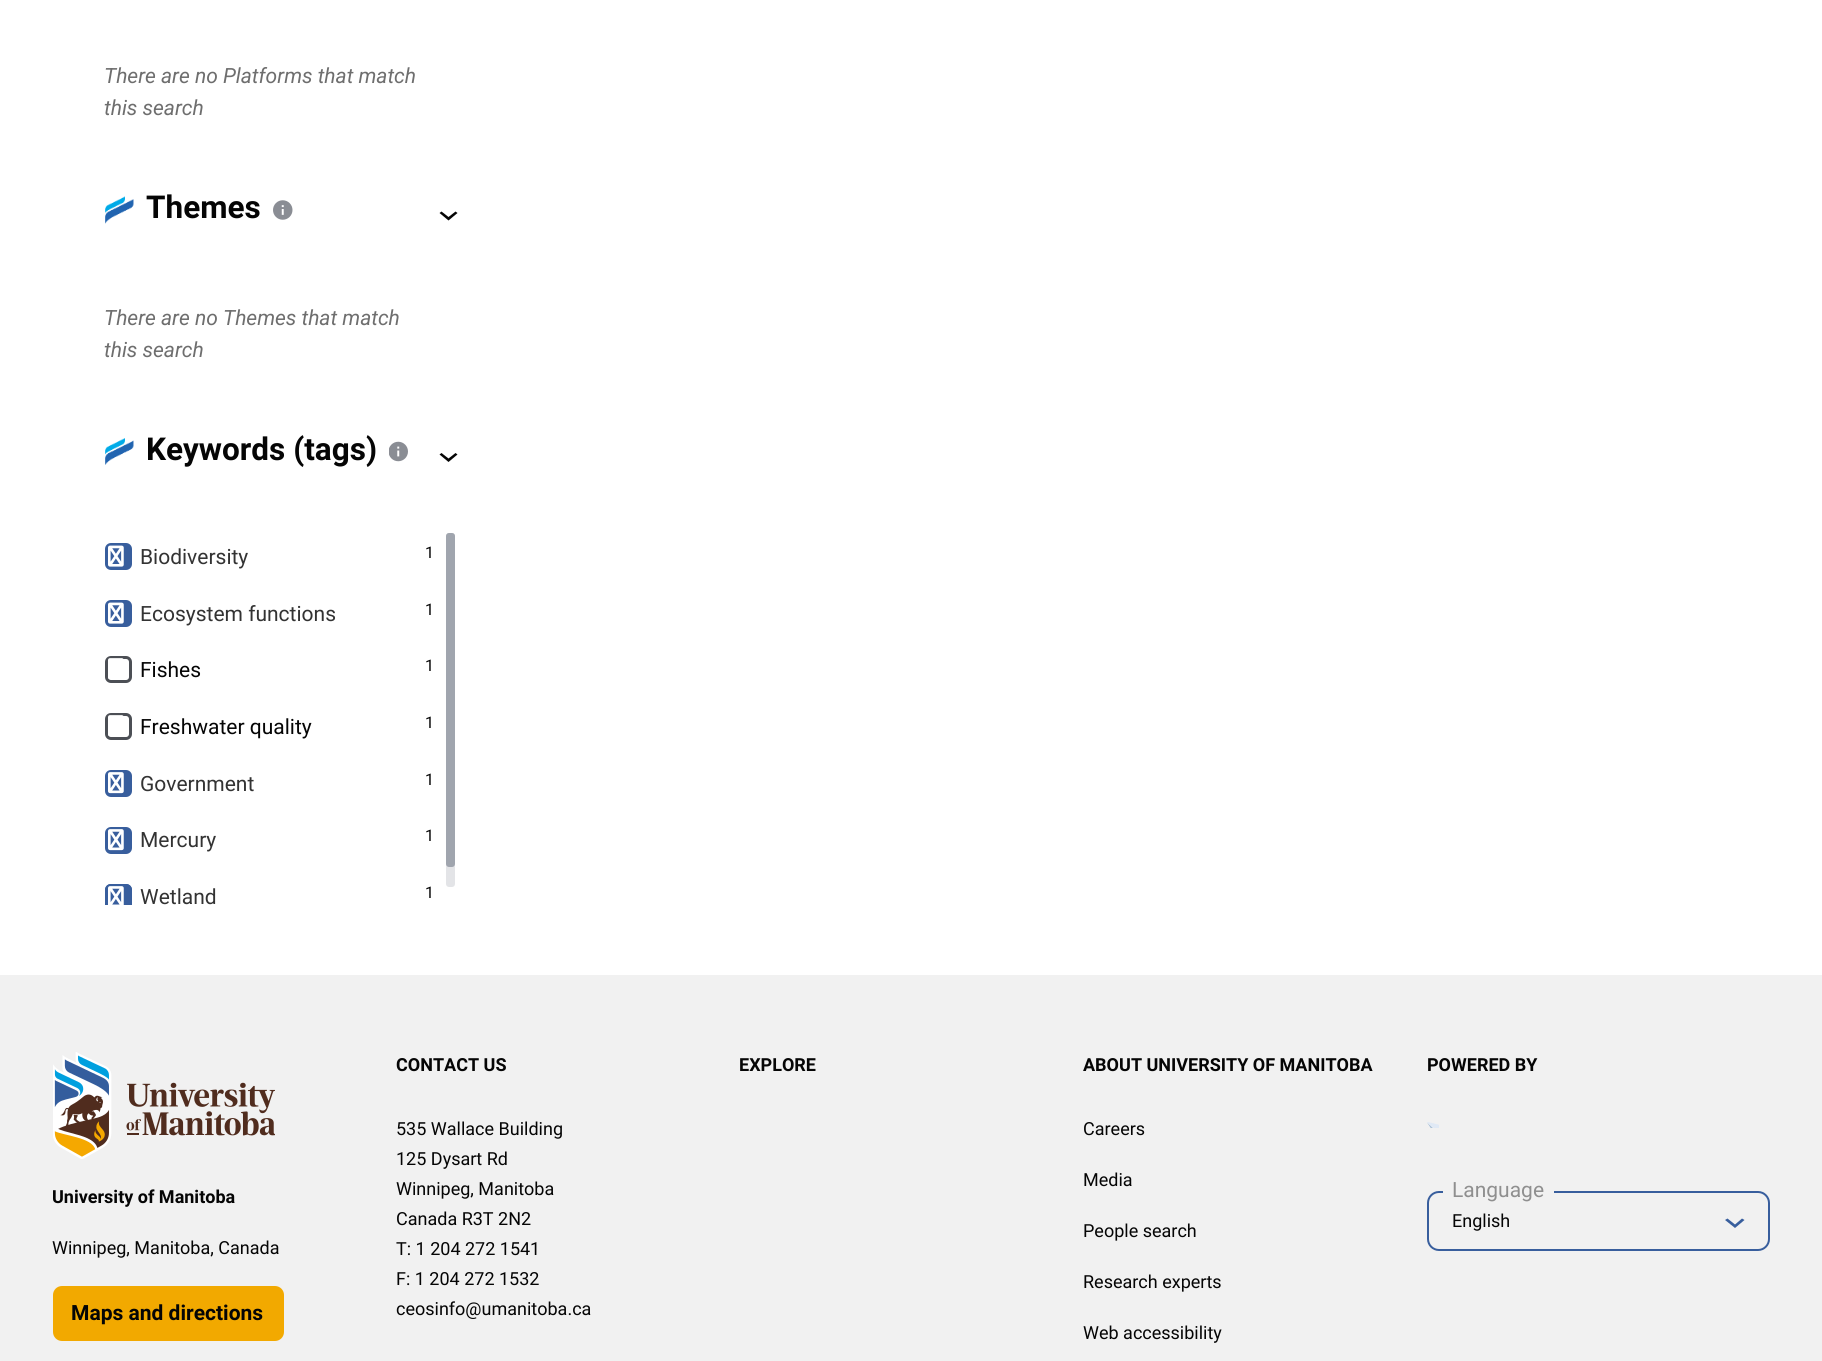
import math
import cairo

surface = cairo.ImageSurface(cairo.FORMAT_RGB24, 1822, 1361)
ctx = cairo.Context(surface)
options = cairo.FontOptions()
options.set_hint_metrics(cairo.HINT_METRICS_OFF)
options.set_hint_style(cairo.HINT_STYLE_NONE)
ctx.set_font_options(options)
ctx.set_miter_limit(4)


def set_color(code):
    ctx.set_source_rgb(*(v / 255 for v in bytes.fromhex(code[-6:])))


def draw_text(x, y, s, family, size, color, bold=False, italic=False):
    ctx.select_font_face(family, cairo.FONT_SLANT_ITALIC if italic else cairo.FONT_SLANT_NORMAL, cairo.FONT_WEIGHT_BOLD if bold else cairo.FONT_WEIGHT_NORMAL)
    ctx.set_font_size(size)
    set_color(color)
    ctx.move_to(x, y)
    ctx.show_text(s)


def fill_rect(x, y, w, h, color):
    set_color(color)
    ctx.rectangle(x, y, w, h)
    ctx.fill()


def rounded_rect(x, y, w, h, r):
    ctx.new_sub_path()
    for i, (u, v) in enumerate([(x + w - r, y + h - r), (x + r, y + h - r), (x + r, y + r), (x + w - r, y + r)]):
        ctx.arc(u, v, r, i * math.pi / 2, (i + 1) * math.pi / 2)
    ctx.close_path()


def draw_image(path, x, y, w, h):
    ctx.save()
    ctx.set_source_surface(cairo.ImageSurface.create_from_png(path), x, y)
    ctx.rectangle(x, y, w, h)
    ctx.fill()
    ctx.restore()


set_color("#f1f1f1")
ctx.paint()
fill_rect(0, 0, 1822, 975, "#ffffff")
draw_text(104, 83, "There are no Platforms that match", "Roboto", 21, "#6e6e6e", italic=True)
draw_text(104, 115, "this search", "Roboto", 21, "#6e6e6e", italic=True)
draw_image("assets/img1.png", 105, 196, 29, 28)
draw_text(146, 218, "Themes", "Roboto", 31.5, "#050505", bold=True)
draw_image("assets/img2.png", 273, 200, 20, 20)
ctx.new_path()
ctx.move_to(439.5, 213)
ctx.line_to(441.5, 211.5)
ctx.line_to(448.5, 217)
ctx.line_to(455.5, 211.5)
ctx.line_to(457.5, 213)
ctx.line_to(448.5, 220.5)
ctx.close_path()
ctx.fill()
draw_text(104, 325, "There are no Themes that match", "Roboto", 21, "#6e6e6e", italic=True)
draw_text(104, 357, "this search", "Roboto", 21, "#6e6e6e", italic=True)
draw_image("assets/img3.png", 105, 438, 29, 27)
draw_text(146, 460, "Keywords (tags)", "Roboto", 31.5, "#050505", bold=True)
draw_image("assets/img4.png", 389, 441, 19, 21)
ctx.new_path()
ctx.move_to(439.5, 454.5)
ctx.line_to(441.5, 453)
ctx.line_to(448.5, 458.5)
ctx.line_to(455.5, 453)
ctx.line_to(457.5, 454.5)
ctx.line_to(448.5, 462)
ctx.close_path()
ctx.fill()
set_color("#385e9d")
rounded_rect(106.5, 544.5, 24, 24, 4.5)
ctx.fill_preserve()
ctx.set_line_width(3)
ctx.stroke()
draw_image("assets/img5.png", 108, 545, 16, 22)
draw_text(140, 564, "Biodiversity", "Roboto", 21, "#333333")
draw_text(425, 558, "1", "Roboto", 16, "#050505")
set_color("#385e9d")
rounded_rect(106.5, 601.5, 24, 24, 4.5)
ctx.fill_preserve()
ctx.stroke()
draw_image("assets/img5.png", 108, 602, 16, 22)
draw_text(140, 621, "Ecosystem functions", "Roboto", 21, "#333333")
draw_text(425, 615, "1", "Roboto", 16, "#050505")
rounded_rect(106.5, 657.5, 24, 24, 4.5)
set_color("#4c4f55")
ctx.stroke()
draw_image("assets/img6.png", 108, 658, 16, 21)
draw_text(140, 677, "Fishes", "Roboto", 21, "#050505")
draw_text(425, 671, "1", "Roboto", 16, "#050505")
rounded_rect(106.5, 714.5, 24, 24, 4.5)
set_color("#4c4f55")
ctx.stroke()
draw_image("assets/img6.png", 108, 715, 16, 21)
draw_text(140, 734, "Freshwater quality", "Roboto", 21, "#050505")
draw_text(425, 728, "1", "Roboto", 16, "#050505")
set_color("#385e9d")
rounded_rect(106.5, 771.5, 24, 24, 4.5)
ctx.fill_preserve()
ctx.stroke()
draw_image("assets/img7.png", 108, 772, 16, 22)
draw_text(140, 791, "Government", "Roboto", 21, "#333333")
draw_text(425, 785, "1", "Roboto", 16, "#050505")
set_color("#385e9d")
rounded_rect(106.5, 828.5, 24, 24, 4.5)
ctx.fill_preserve()
ctx.stroke()
draw_image("assets/img7.png", 108, 829, 16, 22)
draw_text(140, 847, "Mercury", "Roboto", 21, "#333333")
draw_text(425, 841, "1", "Roboto", 16, "#050505")
set_color("#385e9d")
ctx.new_path()
ctx.move_to(111, 884)
ctx.line_to(126, 884)
ctx.curve_to(129.5, 884, 132, 886.5, 132, 890)
ctx.line_to(132, 905)
ctx.line_to(105, 905)
ctx.line_to(105, 890)
ctx.curve_to(105, 886.5, 107.5, 884, 111, 884)
ctx.close_path()
ctx.fill()
ctx.save()
ctx.rectangle(105, 530, 353, 375)
ctx.clip()
rounded_rect(106.5, 885.5, 24, 24, 4.5)
ctx.stroke()
ctx.restore()
draw_image("assets/img8.png", 108, 886, 16, 19)
draw_text(140, 904, "Wetland", "Roboto", 21, "#333333")
draw_text(425, 898, "1", "Roboto", 16, "#050505")
set_color("#e3e4e7")
rounded_rect(446, 533, 9, 354, 3)
ctx.fill()
set_color("#a0a5ae")
rounded_rect(446, 533, 9, 334, 3)
ctx.fill()
draw_text(396, 1071, "CONTACT US", "Roboto", 18, "#050505", bold=True)
draw_text(396, 1135, "535 Wallace Building", "Roboto", 18, "#050505")
draw_text(396, 1165, "125 Dysart Rd", "Roboto", 18, "#050505")
draw_text(396, 1195, "Winnipeg, Manitoba", "Roboto", 18, "#050505")
draw_text(396, 1225, "Canada R3T 2N2", "Roboto", 18, "#050505")
draw_text(396, 1255, "T: 1 204 272 1541", "Roboto", 18, "#050505")
draw_text(396, 1285, "F: 1 204 272 1532", "Roboto", 18, "#050505")
draw_text(396, 1315, "ceosinfo@umanitoba.ca", "Roboto", 18, "#050505")
draw_text(739, 1071, "EXPLORE", "Roboto", 18, "#050505", bold=True)
draw_text(1083, 1071, "ABOUT UNIVERSITY OF MANITOBA", "Roboto", 18, "#050505", bold=True)
draw_text(1083, 1135, "Careers", "Roboto", 18, "#050505")
draw_text(1083, 1186, "Media", "Roboto", 18, "#050505")
draw_text(1083, 1237, "People search", "Roboto", 18, "#050505")
draw_text(1083, 1288, "Research experts", "Roboto", 18, "#050505")
draw_text(1083, 1339, "Web accessibility", "Roboto", 18, "#050505")
draw_text(1427, 1071, "POWERED BY", "Roboto", 18, "#050505", bold=True)
draw_image("assets/img9.png", 1427, 1122, 12, 6)
rounded_rect(1428, 1192, 341, 58, 11)
set_color("#385e9d")
ctx.set_line_width(2)
ctx.stroke()
fill_rect(1443, 1191, 111, 2, "#f1f1f1")
draw_text(1452, 1197, "Language", "Roboto", 21, "#8f8f8f")
draw_text(1452, 1227, "English", "Roboto", 18, "#050505")
set_color("#385e9d")
ctx.new_path()
ctx.move_to(1725, 1220)
ctx.line_to(1727.5, 1218.5)
ctx.line_to(1735, 1224.5)
ctx.line_to(1742, 1218.5)
ctx.line_to(1744.5, 1220)
ctx.line_to(1735, 1228)
ctx.close_path()
ctx.fill()
draw_image("assets/img10.png", 53, 1052, 222, 107)
draw_text(52, 1203, "University of Manitoba", "Roboto", 18, "#050505", bold=True)
draw_text(52, 1254, "Winnipeg, Manitoba, Canada", "Roboto", 18, "#050505")
set_color("#f2a900")
rounded_rect(53, 1286, 231, 55, 9)
ctx.fill()
draw_text(71, 1320, "Maps and directions", "Roboto", 21, "#050505", bold=True)
surface.write_to_png("output.png")
